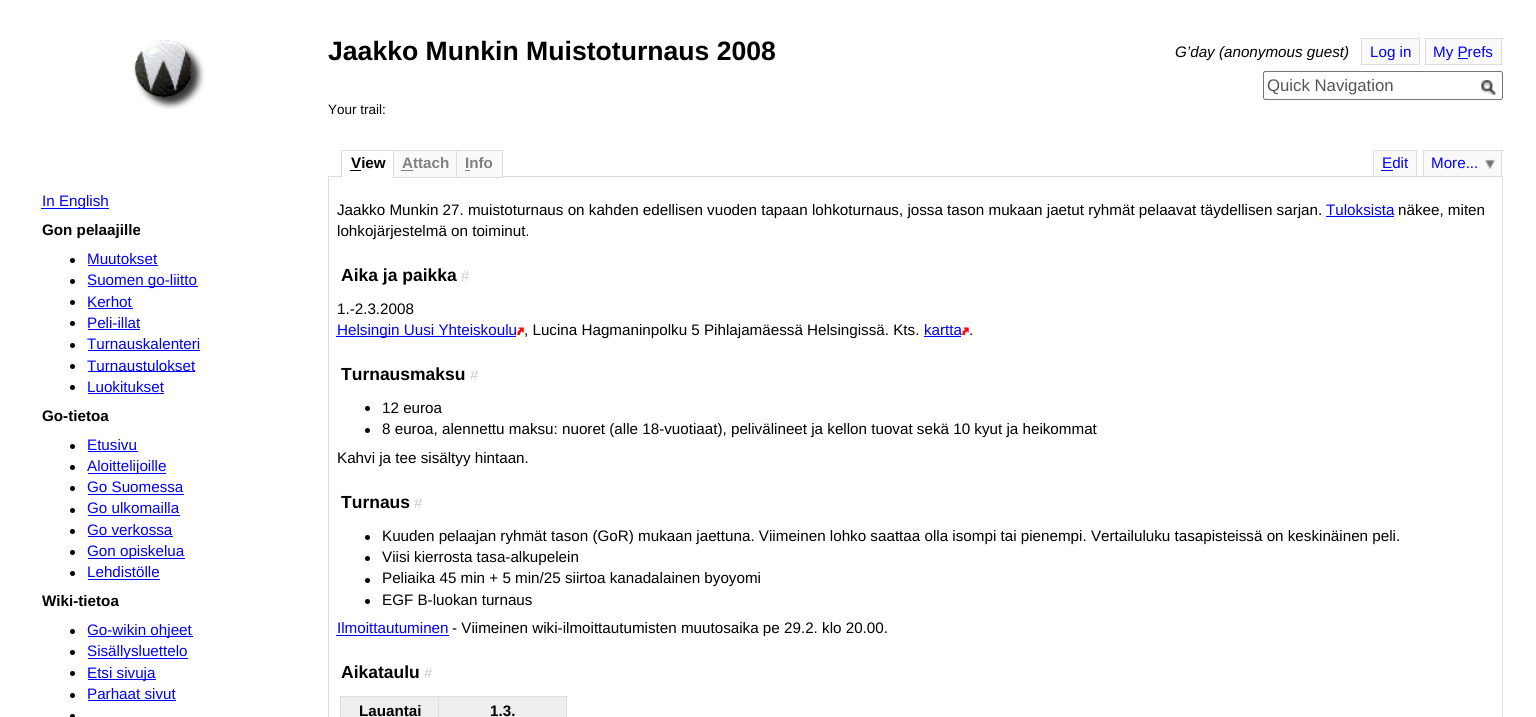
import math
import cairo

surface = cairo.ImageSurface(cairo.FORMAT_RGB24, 1536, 717)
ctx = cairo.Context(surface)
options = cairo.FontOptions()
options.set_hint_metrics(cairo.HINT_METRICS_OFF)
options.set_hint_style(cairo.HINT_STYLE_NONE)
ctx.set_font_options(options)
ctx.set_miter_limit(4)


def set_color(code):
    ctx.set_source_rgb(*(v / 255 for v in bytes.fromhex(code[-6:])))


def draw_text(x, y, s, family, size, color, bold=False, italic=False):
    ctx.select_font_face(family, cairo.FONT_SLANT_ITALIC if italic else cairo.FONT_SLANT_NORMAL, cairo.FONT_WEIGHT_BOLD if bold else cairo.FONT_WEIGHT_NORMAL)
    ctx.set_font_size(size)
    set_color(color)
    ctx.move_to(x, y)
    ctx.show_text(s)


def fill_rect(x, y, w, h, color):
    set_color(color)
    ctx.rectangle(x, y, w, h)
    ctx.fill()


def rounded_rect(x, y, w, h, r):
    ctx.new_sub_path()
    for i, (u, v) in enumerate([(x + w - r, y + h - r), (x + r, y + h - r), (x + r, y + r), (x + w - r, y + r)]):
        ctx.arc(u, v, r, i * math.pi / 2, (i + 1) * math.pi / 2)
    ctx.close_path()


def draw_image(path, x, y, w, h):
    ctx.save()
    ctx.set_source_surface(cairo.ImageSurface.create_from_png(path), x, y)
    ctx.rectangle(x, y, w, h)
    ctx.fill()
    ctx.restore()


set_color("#ffffff")
ctx.paint()
draw_image("assets/img1.png", 133, 40, 72, 69)
draw_text(328, 60, "Jaakko Munkin Muistoturnaus 2008", "Liberation Sans", 26.6, "#000000", bold=True)
draw_text(1175, 57, "G’day (anonymous guest)", "Liberation Sans", 15.2, "#000000", italic=True)
set_color("#f9f9f9")
ctx.rectangle(1361.5, 38.5, 58, 26)
ctx.fill_preserve()
set_color("#dddddd")
ctx.set_line_width(1)
ctx.stroke()
draw_text(1370, 57, "Log in", "Liberation Sans", 15.2, "#0000ff")
fill_rect(1426, 39, 77, 25, "#f9f9f9")
draw_text(1433, 57, "My Prefs", "Liberation Sans", 15.2, "#0000ff")
fill_rect(1425, 38, 78, 1, "#dddddd")
fill_rect(1425, 64, 43, 1, "#dddddd")
fill_rect(1425, 38, 1, 27, "#dddddd")
fill_rect(1501, 38, 1, 27, "#dddddd")
fill_rect(1468, 64, 35, 1, "#dddddd")
fill_rect(1458, 58, 10, 1, "#0000ff")
rounded_rect(1263.5, 71.5, 239, 28, 2)
set_color("#767676")
ctx.stroke()
draw_text(1267, 91, "Quick Navigation", "Liberation Sans", 16.75, "#555555")
draw_image("assets/img2.png", 1481, 80, 16, 15)
draw_text(328, 114, "Your trail:", "Liberation Sans", 13.5, "#000000")
fill_rect(41, 208, 68, 1, "#0000ff")
draw_text(42, 206, "In English", "Liberation Sans", 15.2, "#0000ff")
draw_text(42, 235, "Gon pelaajille", "Liberation Sans", 15.2, "#000000", bold=True)
ctx.new_path()
ctx.arc(72.5, 260.5, 2.5, 0, 2 * math.pi)
ctx.fill()
draw_text(87, 264, "Muutokset", "Liberation Sans", 15.2, "#0000ff")
fill_rect(88, 265, 70, 1, "#0000ff")
set_color("#000000")
ctx.new_path()
ctx.arc(72.5, 281.5, 2.5, 0, 2 * math.pi)
ctx.fill()
fill_rect(88, 286, 110, 1, "#0000ff")
draw_text(87, 285, "Suomen go-liitto", "Liberation Sans", 15.2, "#0000ff")
set_color("#000000")
ctx.new_path()
ctx.arc(72.5, 302.5, 2.5, 0, 2 * math.pi)
ctx.fill()
draw_text(87, 307, "Kerhot", "Liberation Sans", 15.2, "#0000ff")
fill_rect(88, 308, 45, 1, "#0000ff")
set_color("#000000")
ctx.new_path()
ctx.arc(72.5, 323.5, 2.5, 0, 2 * math.pi)
ctx.fill()
draw_text(87, 328, "Peli-illat", "Liberation Sans", 15.2, "#0000ff")
fill_rect(88, 329, 52, 1, "#0000ff")
set_color("#000000")
ctx.new_path()
ctx.arc(72.5, 345.5, 2.5, 0, 2 * math.pi)
ctx.fill()
draw_text(87, 349, "Turnauskalenteri", "Liberation Sans", 15.2, "#0000ff")
fill_rect(88, 350, 112, 1, "#0000ff")
set_color("#000000")
ctx.new_path()
ctx.arc(72.5, 366.5, 2.5, 0, 2 * math.pi)
ctx.fill()
fill_rect(88, 371, 107, 1, "#0000ff")
draw_text(87, 371, "Turnaustulokset", "Liberation Sans", 15.2, "#0000ff")
set_color("#000000")
ctx.new_path()
ctx.arc(72.5, 387.5, 2.5, 0, 2 * math.pi)
ctx.fill()
draw_text(87, 392, "Luokitukset", "Liberation Sans", 15.2, "#0000ff")
fill_rect(88, 393, 76, 1, "#0000ff")
draw_text(42, 421, "Go-tietoa", "Liberation Sans", 15.2, "#000000", bold=True)
ctx.new_path()
ctx.arc(72.5, 446.5, 2.5, 0, 2 * math.pi)
ctx.fill()
draw_text(87, 450, "Etusivu", "Liberation Sans", 15.2, "#0000ff")
fill_rect(88, 451, 50, 1, "#0000ff")
set_color("#000000")
ctx.new_path()
ctx.arc(72.5, 467.5, 2.5, 0, 2 * math.pi)
ctx.fill()
fill_rect(88, 473, 78, 1, "#0000ff")
draw_text(87, 471, "Aloittelijoille", "Liberation Sans", 15.2, "#0000ff")
set_color("#000000")
ctx.new_path()
ctx.arc(72.5, 488.5, 2.5, 0, 2 * math.pi)
ctx.fill()
draw_text(87, 492, "Go Suomessa", "Liberation Sans", 15.2, "#0000ff")
fill_rect(88, 494, 96, 1, "#0000ff")
set_color("#000000")
ctx.new_path()
ctx.arc(72.5, 510.5, 2.5, 0, 2 * math.pi)
ctx.fill()
draw_text(87, 513, "Go ulkomailla", "Liberation Sans", 15.2, "#0000ff")
fill_rect(88, 515, 92, 1, "#0000ff")
set_color("#000000")
ctx.new_path()
ctx.arc(72.5, 531.5, 2.5, 0, 2 * math.pi)
ctx.fill()
draw_text(87, 535, "Go verkossa", "Liberation Sans", 15.2, "#0000ff")
fill_rect(88, 536, 85, 1, "#0000ff")
set_color("#000000")
ctx.new_path()
ctx.arc(72.5, 552.5, 2.5, 0, 2 * math.pi)
ctx.fill()
fill_rect(88, 558, 97, 1, "#0000ff")
draw_text(87, 556, "Gon opiskelua", "Liberation Sans", 15.2, "#0000ff")
set_color("#000000")
ctx.new_path()
ctx.arc(72.5, 573.5, 2.5, 0, 2 * math.pi)
ctx.fill()
draw_text(87, 577, "Lehdistölle", "Liberation Sans", 15.2, "#0000ff")
fill_rect(88, 579, 72, 1, "#0000ff")
draw_text(42, 606, "Wiki-tietoa", "Liberation Sans", 15.2, "#000000", bold=True)
ctx.new_path()
ctx.arc(72.5, 631.5, 2.5, 0, 2 * math.pi)
ctx.fill()
fill_rect(88, 636, 105, 1, "#0000ff")
draw_text(87, 635, "Go-wikin ohjeet", "Liberation Sans", 15.2, "#0000ff")
set_color("#000000")
ctx.new_path()
ctx.arc(72.5, 652.5, 2.5, 0, 2 * math.pi)
ctx.fill()
fill_rect(88, 658, 100, 1, "#0000ff")
draw_text(87, 656, "Sisällysluettelo", "Liberation Sans", 15.2, "#0000ff")
set_color("#000000")
ctx.new_path()
ctx.arc(72.5, 673.5, 2.5, 0, 2 * math.pi)
ctx.fill()
fill_rect(88, 679, 68, 1, "#0000ff")
draw_text(87, 678, "Etsi sivuja", "Liberation Sans", 15.2, "#0000ff")
set_color("#000000")
ctx.new_path()
ctx.arc(72.5, 695.5, 2.5, 0, 2 * math.pi)
ctx.fill()
draw_text(87, 699, "Parhaat sivut", "Liberation Sans", 15.2, "#0000ff")
fill_rect(88, 700, 88, 1, "#0000ff")
set_color("#000000")
ctx.new_path()
ctx.arc(72.5, 716.5, 2.5, 0, 2 * math.pi)
ctx.fill()
fill_rect(341, 150, 53, 1, "#dddddd")
ctx.rectangle(328.5, 176.5, 1174, 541)
ctx.stroke()
fill_rect(341, 176, 53, 1, "#ffffff")
fill_rect(341, 150, 1, 28, "#dddddd")
draw_text(351, 168, "View", "Liberation Sans", 15.2, "#000000", bold=True)
fill_rect(350, 170, 11, 1, "#000000")
fill_rect(394, 151, 62, 26, "#f9f9f9")
ctx.rectangle(393.5, 150.5, 64, 27)
set_color("#dddddd")
ctx.stroke()
draw_text(402, 168, "Attach", "Liberation Sans", 15.2, "#808080", bold=True)
fill_rect(401, 170, 12, 1, "#808080")
set_color("#f9f9f9")
ctx.rectangle(456.5, 150.5, 46, 27)
ctx.fill_preserve()
set_color("#dddddd")
ctx.stroke()
draw_text(465, 168, "Info", "Liberation Sans", 15.2, "#808080", bold=True)
fill_rect(465, 170, 5, 1, "#808080")
fill_rect(1374, 151, 44, 25, "#f9f9f9")
fill_rect(1373, 150, 45, 1, "#dddddd")
fill_rect(1416, 150, 1, 26, "#dddddd")
fill_rect(1373, 150, 1, 26, "#dddddd")
draw_text(1382, 168, "Edit", "Liberation Sans", 15.2, "#0000ff")
fill_rect(1381, 170, 12, 1, "#0000ff")
fill_rect(1424, 151, 79, 25, "#f9f9f9")
draw_image("assets/img3.png", 1485, 159, 10, 10)
fill_rect(1423, 150, 80, 1, "#dddddd")
fill_rect(1501, 150, 1, 26, "#dddddd")
fill_rect(1423, 150, 1, 26, "#dddddd")
draw_text(1431, 168, "More...", "Liberation Sans", 15.2, "#0000ff")
draw_text(337, 215, "Jaakko Munkin 27. muistoturnaus on kahden edellisen vuoden tapaan lohkoturnaus, jossa tason mukaan jaetut ryhmät pelaavat täydellisen sarjan.", "Liberation Sans", 15.2, "#000000")
draw_text(1326, 215, "Tuloksista", "Liberation Sans", 15.2, "#0000ff")
fill_rect(1326, 216, 68, 1, "#0000ff")
draw_text(1398, 215, "näkee, miten", "Liberation Sans", 15.2, "#000000")
draw_text(337, 236, "lohkojärjestelmä on toiminut.", "Liberation Sans", 15.2, "#000000")
draw_text(341, 281, "Aika ja paikka", "Liberation Sans", 17.5, "#000000", bold=True)
draw_text(461, 281, "#", "Liberation Sans", 15, "#cccccc")
draw_text(337, 314, "1.-2.3.2008", "Liberation Sans", 15.2, "#000000")
fill_rect(336, 336, 180, 1, "#0000ff")
draw_text(337, 335, "Helsingin Uusi Yhteiskoulu", "Liberation Sans", 15.2, "#0000ff")
draw_image("assets/img4.png", 517, 327, 7, 8)
draw_text(524, 335, ", Lucina Hagmaninpolku 5 Pihlajamäessä Helsingissä. Kts.", "Liberation Sans", 15.2, "#000000")
draw_text(924, 335, "kartta", "Liberation Sans", 15.2, "#0000ff")
fill_rect(924, 336, 37, 1, "#0000ff")
draw_image("assets/img4.png", 962, 327, 7, 8)
draw_text(969, 335, ".", "Liberation Sans", 15.2, "#000000")
draw_text(341, 380, "Turnausmaksu", "Liberation Sans", 17.5, "#000000", bold=True)
draw_text(470, 380, "#", "Liberation Sans", 15, "#cccccc")
set_color("#000000")
ctx.new_path()
ctx.arc(367.5, 408.5, 2.5, 0, 2 * math.pi)
ctx.fill()
draw_text(382, 413, "12 euroa", "Liberation Sans", 15.2, "#000000")
ctx.new_path()
ctx.arc(367.5, 430.5, 2.5, 0, 2 * math.pi)
ctx.fill()
draw_text(382, 434, "8 euroa, alennettu maksu: nuoret (alle 18-vuotiaat), pelivälineet ja kellon tuovat sekä 10 kyut ja heikommat", "Liberation Sans", 15.2, "#000000")
draw_text(337, 463, "Kahvi ja tee sisältyy hintaan.", "Liberation Sans", 15.2, "#000000")
draw_text(341, 508, "Turnaus", "Liberation Sans", 17.5, "#000000", bold=True)
draw_text(414, 508, "#", "Liberation Sans", 15, "#cccccc")
set_color("#000000")
ctx.new_path()
ctx.arc(367.5, 537.5, 2.5, 0, 2 * math.pi)
ctx.fill()
draw_text(382, 541, "Kuuden pelaajan ryhmät tason (GoR) mukaan jaettuna. Viimeinen lohko saattaa olla isompi tai pienempi. Vertailuluku tasapisteissä on keskinäinen peli.", "Liberation Sans", 15.2, "#000000")
ctx.new_path()
ctx.arc(367.5, 558.5, 2.5, 0, 2 * math.pi)
ctx.fill()
draw_text(382, 562, "Viisi kierrosta tasa-alkupelein", "Liberation Sans", 15.2, "#000000")
ctx.new_path()
ctx.arc(367.5, 580.5, 2.5, 0, 2 * math.pi)
ctx.fill()
draw_text(382, 583, "Peliaika 45 min + 5 min/25 siirtoa kanadalainen byoyomi", "Liberation Sans", 15.2, "#000000")
ctx.new_path()
ctx.arc(367.5, 601.5, 2.5, 0, 2 * math.pi)
ctx.fill()
draw_text(382, 605, "EGF B-luokan turnaus", "Liberation Sans", 15.2, "#000000")
draw_text(337, 633, "Ilmoittautuminen", "Liberation Sans", 15.2, "#0000ff")
fill_rect(336, 635, 113, 1, "#0000ff")
draw_text(452, 633, "- Viimeinen wiki-ilmoittautumisten muutosaika pe 29.2. klo 20.00.", "Liberation Sans", 15.2, "#000000")
draw_text(341, 678, "Aikataulu", "Liberation Sans", 17.5, "#000000", bold=True)
draw_text(424, 678, "#", "Liberation Sans", 15, "#cccccc")
fill_rect(341, 697, 97, 20, "#eeeeee")
fill_rect(438, 696, 130, 1, "#dddddd")
fill_rect(438, 696, 1, 21, "#dddddd")
fill_rect(340, 696, 99, 1, "#dddddd")
fill_rect(340, 696, 1, 21, "#dddddd")
draw_text(359, 716, "Lauantai", "Liberation Sans", 15.2, "#000000", bold=True)
fill_rect(439, 697, 127, 20, "#eeeeee")
fill_rect(566, 696, 1, 21, "#dddddd")
draw_text(490, 716, "1.3.", "Liberation Sans", 15.2, "#000000", bold=True)
surface.write_to_png("output.png")
